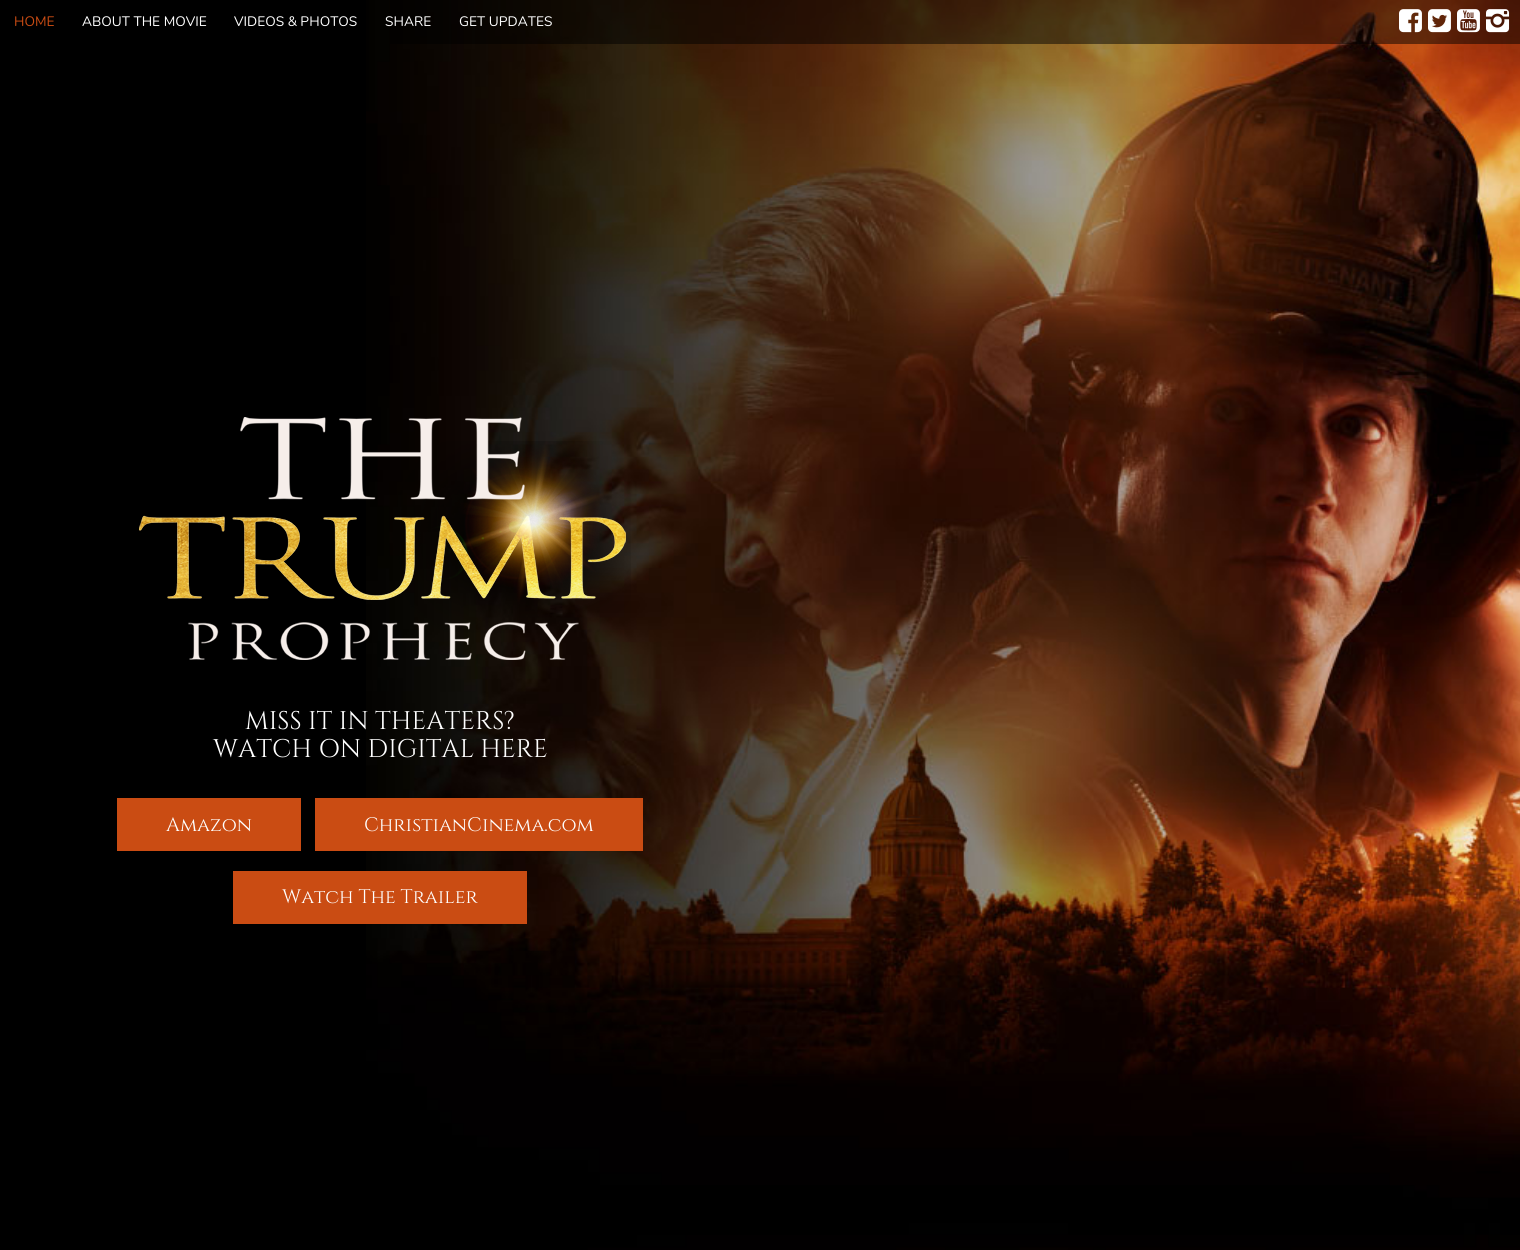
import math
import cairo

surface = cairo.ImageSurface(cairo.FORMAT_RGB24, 1520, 1250)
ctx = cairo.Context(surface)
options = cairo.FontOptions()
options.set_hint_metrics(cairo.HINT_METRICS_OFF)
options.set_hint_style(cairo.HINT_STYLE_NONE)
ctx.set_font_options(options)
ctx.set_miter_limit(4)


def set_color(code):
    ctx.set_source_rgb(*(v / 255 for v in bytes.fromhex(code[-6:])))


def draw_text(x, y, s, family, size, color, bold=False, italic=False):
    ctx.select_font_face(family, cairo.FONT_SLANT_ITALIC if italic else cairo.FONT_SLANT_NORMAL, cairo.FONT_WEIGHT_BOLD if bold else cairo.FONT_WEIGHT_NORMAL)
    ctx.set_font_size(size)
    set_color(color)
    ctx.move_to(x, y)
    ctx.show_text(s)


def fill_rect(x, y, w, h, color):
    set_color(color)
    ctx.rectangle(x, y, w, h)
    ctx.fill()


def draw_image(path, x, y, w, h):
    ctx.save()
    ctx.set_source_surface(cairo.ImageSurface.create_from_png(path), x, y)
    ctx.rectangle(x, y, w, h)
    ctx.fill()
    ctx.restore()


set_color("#000000")
ctx.paint()
draw_image("assets/img1.png", 366, 0, 1154, 1250)
ctx.set_source_rgba(0, 0, 0, 0.5)
ctx.rectangle(390, 0, 1130, 44)
ctx.fill()
draw_text(14, 26, "HOME", "Nunito", 13.75, "#ca4c13")
draw_text(82, 26, "ABOUT THE MOVIE", "Nunito", 13.75, "#ffffff")
draw_text(234, 26, "VIDEOS & PHOTOS", "Nunito", 13.75, "#ffffff")
draw_text(385, 26, "SHARE", "Nunito", 13.75, "#ffffff")
draw_text(459, 26, "GET UPDATES", "Nunito", 13.75, "#ffffff")
draw_image("assets/img2.png", 1399, 9, 23, 24)
draw_image("assets/img3.png", 1428, 9, 23, 24)
draw_image("assets/img4.png", 1457, 9, 23, 24)
draw_image("assets/img5.png", 1486, 9, 24, 24)
draw_image("assets/img6.png", 139, 417, 492, 243)
draw_text(245, 729, "MISS IT IN THEATERS?", "Cinzel", 25.5, "#ffffff")
draw_text(213, 757, "WATCH ON DIGITAL HERE", "Cinzel", 25.5, "#ffffff")
fill_rect(117, 798, 184, 53, "#ca4c13")
draw_text(166, 831, "Amazon", "Cinzel", 19.5, "#ffffff")
fill_rect(315, 798, 328, 53, "#ca4c13")
draw_text(364, 831, "ChristianCinema.com", "Cinzel", 19.5, "#ffffff")
fill_rect(233, 871, 294, 53, "#ca4c13")
draw_text(282, 903, "Watch The Trailer", "Cinzel", 19.5, "#ffffff")
surface.write_to_png("output.png")
